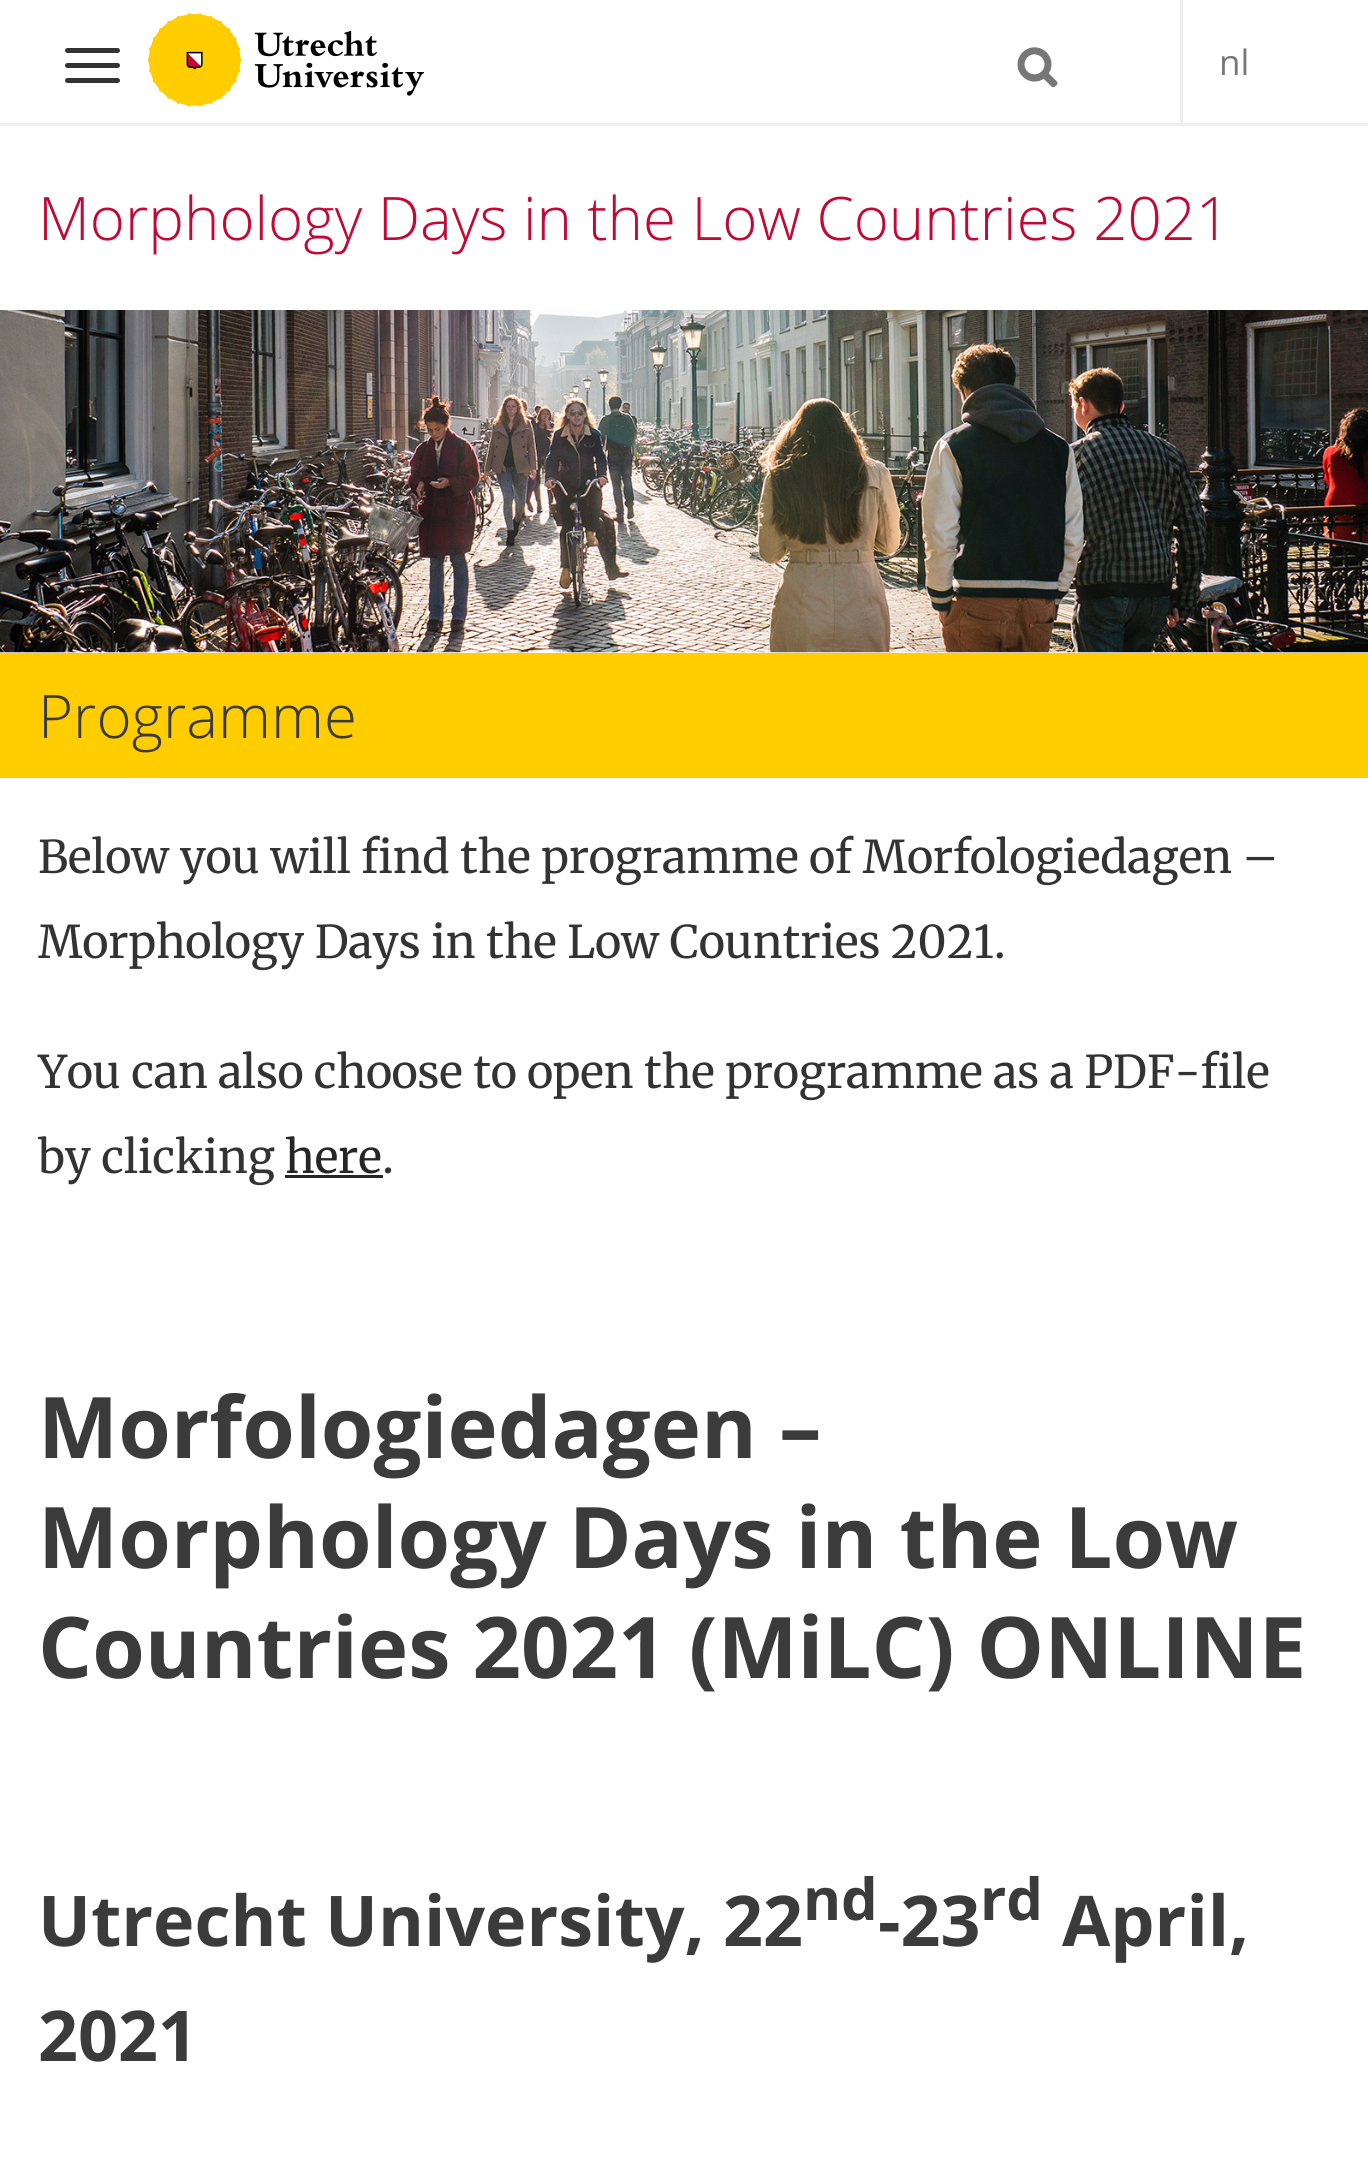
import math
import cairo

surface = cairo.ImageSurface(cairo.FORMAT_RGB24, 1368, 2162)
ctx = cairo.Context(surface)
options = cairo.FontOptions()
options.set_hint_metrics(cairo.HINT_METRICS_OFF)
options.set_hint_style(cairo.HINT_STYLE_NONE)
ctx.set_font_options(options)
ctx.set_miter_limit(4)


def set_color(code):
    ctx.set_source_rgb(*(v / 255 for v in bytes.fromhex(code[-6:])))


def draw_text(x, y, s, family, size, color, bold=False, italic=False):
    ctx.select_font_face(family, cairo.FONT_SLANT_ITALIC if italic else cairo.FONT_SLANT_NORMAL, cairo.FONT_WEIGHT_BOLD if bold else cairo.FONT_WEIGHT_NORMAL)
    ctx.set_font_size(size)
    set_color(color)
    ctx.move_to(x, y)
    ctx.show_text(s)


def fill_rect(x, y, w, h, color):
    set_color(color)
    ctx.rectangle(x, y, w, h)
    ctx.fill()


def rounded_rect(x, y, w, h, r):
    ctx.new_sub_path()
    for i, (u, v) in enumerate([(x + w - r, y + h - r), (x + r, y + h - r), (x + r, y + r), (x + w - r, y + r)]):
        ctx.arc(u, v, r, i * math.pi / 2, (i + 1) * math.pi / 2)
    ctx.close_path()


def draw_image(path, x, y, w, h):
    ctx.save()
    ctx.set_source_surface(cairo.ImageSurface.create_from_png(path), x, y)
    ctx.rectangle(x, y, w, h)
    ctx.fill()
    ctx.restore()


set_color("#ffffff")
ctx.paint()
fill_rect(0, 123, 1368, 3, "#efefef")
set_color("#333333")
rounded_rect(65, 48, 55, 5, 2.5)
ctx.fill()
rounded_rect(65, 63, 55, 5, 2.5)
ctx.fill()
rounded_rect(65, 78, 55, 5, 2.5)
ctx.fill()
draw_image("assets/img1.png", 148, 13, 276, 94)
draw_image("assets/img2.png", 1017, 47, 41, 41)
fill_rect(1180, 0, 3, 123, "#efefef")
draw_text(1219, 75, "nl", "Open Sans", 35, "#787878")
draw_text(38, 240, "Morphology Days in the Low Countries 2021", "Open Sans Light", 60, "#c00a35")
draw_image("assets/img3.png", 0, 310, 1368, 343)
fill_rect(0, 653, 1368, 125, "#ffcd00")
draw_text(38, 738, "Programme", "Open Sans Light", 60, "#3b3b3b")
draw_text(38, 873, "Below you will find the programme of Morfologiedagen –", "Merriweather", 45, "#333333")
draw_text(38, 958, "Morphology Days in the Low Countries 2021.", "Merriweather", 45, "#333333")
draw_text(38, 1088, "You can also choose to open the programme as a PDF-file", "Merriweather", 45, "#333333")
draw_text(38, 1173, "by clicking", "Merriweather", 45, "#333333")
draw_text(285, 1173, "here", "Merriweather", 45, "#262626")
fill_rect(285, 1175, 98, 3, "#262626")
draw_text(382, 1173, ".", "Merriweather", 45, "#333333")
draw_text(38, 1458, "Morfologiedagen –", "Open Sans", 85, "#3b3b3b", bold=True)
draw_text(38, 1568, "Morphology Days in the Low", "Open Sans", 85, "#3b3b3b", bold=True)
draw_text(38, 1678, "Countries 2021 (MiLC) ONLINE", "Open Sans", 85, "#3b3b3b", bold=True)
draw_text(38, 1946, "Utrecht University, 22", "Open Sans", 70, "#3b3b3b", bold=True)
draw_text(803, 1920, "nd", "Open Sans", 58, "#3b3b3b", bold=True)
draw_text(878, 1946, "-23", "Open Sans", 70, "#3b3b3b", bold=True)
draw_text(980, 1920, "rd", "Open Sans", 58, "#3b3b3b", bold=True)
draw_text(1062, 1946, "April,", "Open Sans", 70, "#3b3b3b", bold=True)
draw_text(38, 2061, "2021", "Open Sans", 70, "#3b3b3b", bold=True)
surface.write_to_png("output.png")
